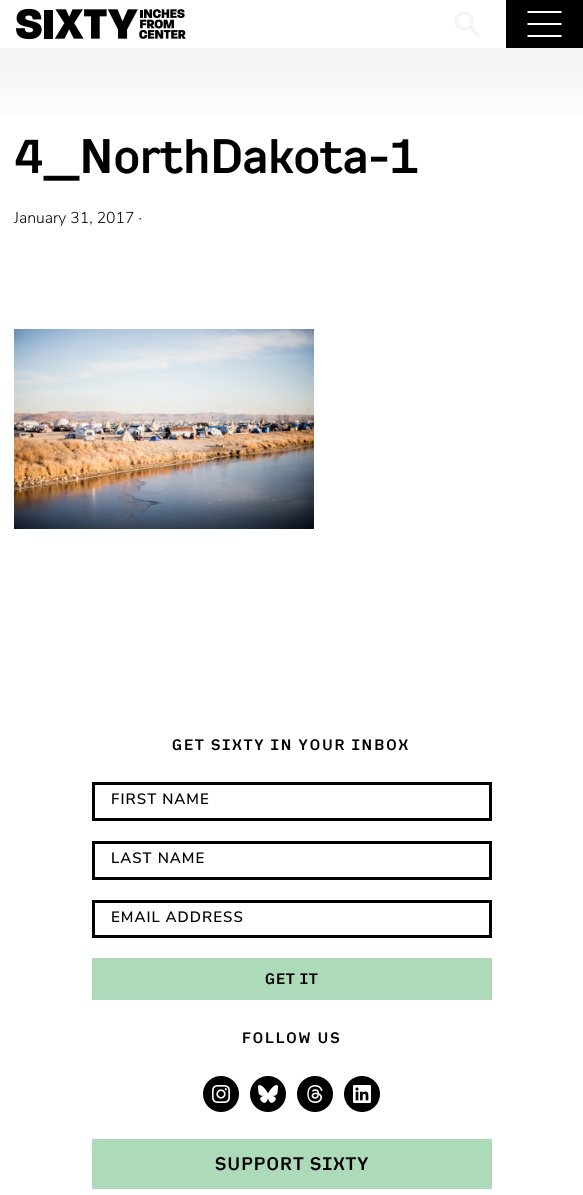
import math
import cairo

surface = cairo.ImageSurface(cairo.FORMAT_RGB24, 583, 1195)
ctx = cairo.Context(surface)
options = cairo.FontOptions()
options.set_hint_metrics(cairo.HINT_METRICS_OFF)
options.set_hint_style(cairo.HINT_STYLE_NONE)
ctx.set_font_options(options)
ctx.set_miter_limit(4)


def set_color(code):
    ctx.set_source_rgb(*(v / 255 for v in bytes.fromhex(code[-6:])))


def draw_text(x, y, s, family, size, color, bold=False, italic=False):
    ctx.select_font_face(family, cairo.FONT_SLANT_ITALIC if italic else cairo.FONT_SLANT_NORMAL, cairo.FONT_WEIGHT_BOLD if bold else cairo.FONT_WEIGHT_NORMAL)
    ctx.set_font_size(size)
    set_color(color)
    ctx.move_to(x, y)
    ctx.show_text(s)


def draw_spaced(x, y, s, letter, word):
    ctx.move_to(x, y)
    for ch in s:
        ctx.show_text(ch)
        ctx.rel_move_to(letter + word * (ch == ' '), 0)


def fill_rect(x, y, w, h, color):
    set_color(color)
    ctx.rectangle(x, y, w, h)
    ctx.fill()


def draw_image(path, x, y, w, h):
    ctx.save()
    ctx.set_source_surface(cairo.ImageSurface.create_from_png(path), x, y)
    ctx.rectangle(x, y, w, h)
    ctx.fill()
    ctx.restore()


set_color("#ffffff")
ctx.paint()
gradient = cairo.LinearGradient(292, 0, 292, 130)
gradient.add_color_stop_rgba(0.5, 0.961, 0.961, 0.961, 1)
gradient.add_color_stop_rgba(1, 1, 1, 1, 1)
ctx.set_source(gradient)
ctx.rectangle(0, 48, 583, 66)
ctx.fill()
draw_image("assets/img1.png", 16, 8, 170, 32)
ctx.arc(464, 21, 8, 0, 2 * math.pi)
set_color("#f5f5f5")
ctx.set_line_width(3.5)
ctx.stroke()
ctx.new_path()
ctx.move_to(471, 28)
ctx.line_to(477.5, 34.5)
ctx.set_source_rgba(0.8, 0.8, 0.8, 0.2)
ctx.set_line_cap(cairo.LINE_CAP_ROUND)
ctx.stroke()
fill_rect(506, 0, 77, 48, "#000000")
ctx.new_path()
ctx.move_to(528.5, 12)
ctx.line_to(560.5, 12)
ctx.move_to(528.5, 24)
ctx.line_to(560.5, 24)
ctx.move_to(528.5, 36)
ctx.line_to(560.5, 36)
set_color("#ffffff")
ctx.set_line_width(2)
ctx.set_line_cap(cairo.LINE_CAP_SQUARE)
ctx.stroke()
draw_text(14, 173, "4_NorthDakota-1", "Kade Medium", 48, "#000000")
draw_text(14, 223, "January 31, 2017 ·", "Nunito Sans Light", 15.75, "#000000")
draw_image("assets/img2.png", 14, 329, 300, 200)
ctx.select_font_face("Kade Medium")
ctx.set_font_size(15)
draw_spaced(172, 750, "GET SIXTY IN YOUR INBOX", 2, 0)
ctx.rectangle(93.5, 783.5, 397, 36)
ctx.set_line_width(3)
ctx.set_line_cap(cairo.LINE_CAP_BUTT)
ctx.stroke()
ctx.select_font_face("Nunito Sans SemiBold")
draw_spaced(111, 804, "FIRST NAME", 1, 0)
ctx.rectangle(93.5, 842.5, 397, 36)
ctx.stroke()
draw_spaced(111, 863, "LAST NAME", 1, 0)
ctx.rectangle(93.5, 901.5, 397, 35)
ctx.stroke()
draw_spaced(111, 922, "EMAIL ADDRESS", 1, 0)
fill_rect(92, 958, 400, 42, "#addab8")
ctx.select_font_face("Kade Medium")
set_color("#000000")
draw_spaced(265, 984, "GET IT", 1, 0)
draw_spaced(242, 1043, "FOLLOW US", 2, 0)
ctx.new_path()
ctx.arc(221, 1094, 18, 0, 2 * math.pi)
ctx.fill()
draw_image("assets/img3.png", 212, 1085, 18, 18)
ctx.arc(268, 1094, 18, 0, 2 * math.pi)
ctx.fill()
draw_image("assets/img4.png", 258, 1085, 20, 18)
ctx.arc(315, 1094, 18, 0, 2 * math.pi)
ctx.fill()
draw_image("assets/img5.png", 307, 1085, 16, 18)
ctx.arc(362, 1094, 18, 0, 2 * math.pi)
ctx.fill()
draw_image("assets/img6.png", 353, 1085, 18, 18)
fill_rect(92, 1139, 400, 50, "#addab8")
ctx.set_font_size(18)
set_color("#000000")
draw_spaced(215, 1170, "SUPPORT SIXTY", 1.25, 0)
surface.write_to_png("output.png")
